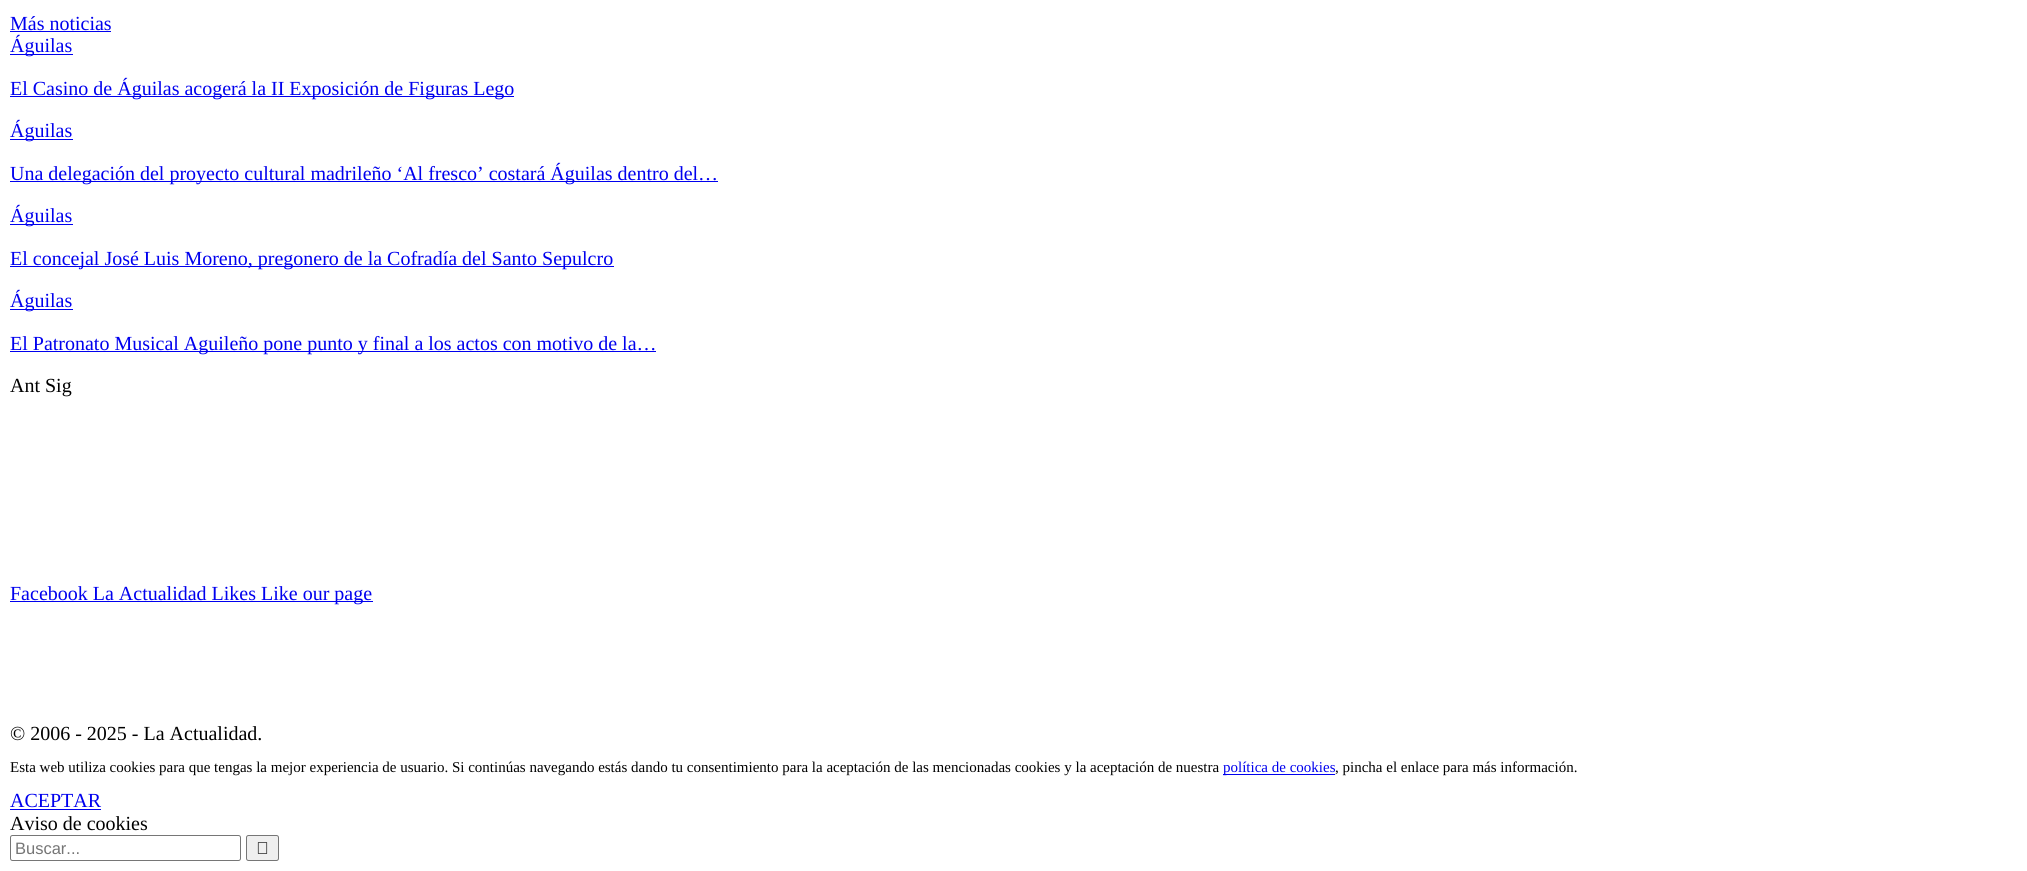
import math
import cairo

surface = cairo.ImageSurface(cairo.FORMAT_RGB24, 2027, 871)
ctx = cairo.Context(surface)
options = cairo.FontOptions()
options.set_hint_metrics(cairo.HINT_METRICS_OFF)
options.set_hint_style(cairo.HINT_STYLE_NONE)
ctx.set_font_options(options)
ctx.set_miter_limit(4)


def set_color(code):
    ctx.set_source_rgb(*(v / 255 for v in bytes.fromhex(code[-6:])))


def draw_text(x, y, s, family, size, color, bold=False, italic=False):
    ctx.select_font_face(family, cairo.FONT_SLANT_ITALIC if italic else cairo.FONT_SLANT_NORMAL, cairo.FONT_WEIGHT_BOLD if bold else cairo.FONT_WEIGHT_NORMAL)
    ctx.set_font_size(size)
    set_color(color)
    ctx.move_to(x, y)
    ctx.show_text(s)


def fill_rect(x, y, w, h, color):
    set_color(color)
    ctx.rectangle(x, y, w, h)
    ctx.fill()


def rounded_rect(x, y, w, h, r):
    ctx.new_sub_path()
    for i, (u, v) in enumerate([(x + w - r, y + h - r), (x + r, y + h - r), (x + r, y + r), (x + w - r, y + r)]):
        ctx.arc(u, v, r, i * math.pi / 2, (i + 1) * math.pi / 2)
    ctx.close_path()


def draw_image(path, x, y, w, h):
    ctx.save()
    ctx.set_source_surface(cairo.ImageSurface.create_from_png(path), x, y)
    ctx.rectangle(x, y, w, h)
    ctx.fill()
    ctx.restore()


set_color("#ffffff")
ctx.paint()
draw_text(10, 30, "Más noticias", "Liberation Serif", 20, "#0000ee")
fill_rect(10, 31, 101, 1, "#0000ee")
fill_rect(10, 54, 63, 1, "#0000ee")
draw_text(10, 52, "Águilas", "Liberation Serif", 20, "#0000ee")
fill_rect(10, 96, 504, 1, "#0000ee")
draw_text(10, 95, "El Casino de Águilas acogerá la II Exposición de Figuras Lego", "Liberation Serif", 20, "#0000ee")
fill_rect(10, 139, 63, 1, "#0000ee")
draw_text(10, 137, "Águilas", "Liberation Serif", 20, "#0000ee")
fill_rect(10, 181, 708, 1, "#0000ee")
draw_text(10, 180, "Una delegación del proyecto cultural madrileño ‘Al fresco’ costará Águilas dentro del…", "Liberation Serif", 20, "#0000ee")
fill_rect(10, 224, 63, 1, "#0000ee")
draw_text(10, 222, "Águilas", "Liberation Serif", 20, "#0000ee")
fill_rect(10, 266, 604, 1, "#0000ee")
draw_text(10, 265, "El concejal José Luis Moreno, pregonero de la Cofradía del Santo Sepulcro", "Liberation Serif", 20, "#0000ee")
fill_rect(10, 309, 63, 1, "#0000ee")
draw_text(10, 307, "Águilas", "Liberation Serif", 20, "#0000ee")
fill_rect(10, 351, 646, 1, "#0000ee")
draw_text(10, 350, "El Patronato Musical Aguileño pone punto y final a los actos con motivo de la…", "Liberation Serif", 20, "#0000ee")
draw_text(10, 392, "Ant Sig", "Liberation Serif", 20, "#000000")
fill_rect(10, 601, 363, 1, "#0000ee")
draw_text(10, 600, "Facebook La Actualidad Likes Like our page", "Liberation Serif", 20, "#0000ee")
draw_text(10, 740, "© 2006 - 2025 - La Actualidad.", "Liberation Serif", 20, "#000000")
draw_text(10, 772, "Esta web utiliza cookies para que tengas la mejor experiencia de usuario. Si continúas navegando estás dando tu consentimiento para la aceptación de las mencionadas cookies y la aceptación de nuestra", "Liberation Serif", 15, "#000000")
fill_rect(1223, 774, 112, 1, "#0000ee")
draw_text(1223, 772, "política de cookies", "Liberation Serif", 15, "#0000ee")
draw_text(1335, 772, ", pincha el enlace para más información.", "Liberation Serif", 15, "#000000")
draw_text(10, 807, "ACEPTAR", "Liberation Serif", 20, "#0000ee")
fill_rect(10, 809, 91, 1, "#0000ee")
draw_text(10, 830, "Aviso de cookies", "Liberation Serif", 20, "#000000")
rounded_rect(10.5, 835.5, 230, 25, 2)
set_color("#767676")
ctx.set_line_width(1)
ctx.stroke()
draw_text(15, 854, "Buscar...", "Liberation Sans", 16.5, "#757575")
set_color("#efefef")
rounded_rect(246.5, 835.5, 32, 25, 2)
ctx.fill_preserve()
set_color("#767676")
ctx.stroke()
draw_image("assets/img1.png", 257, 842, 11, 12)
surface.write_to_png("output.png")
